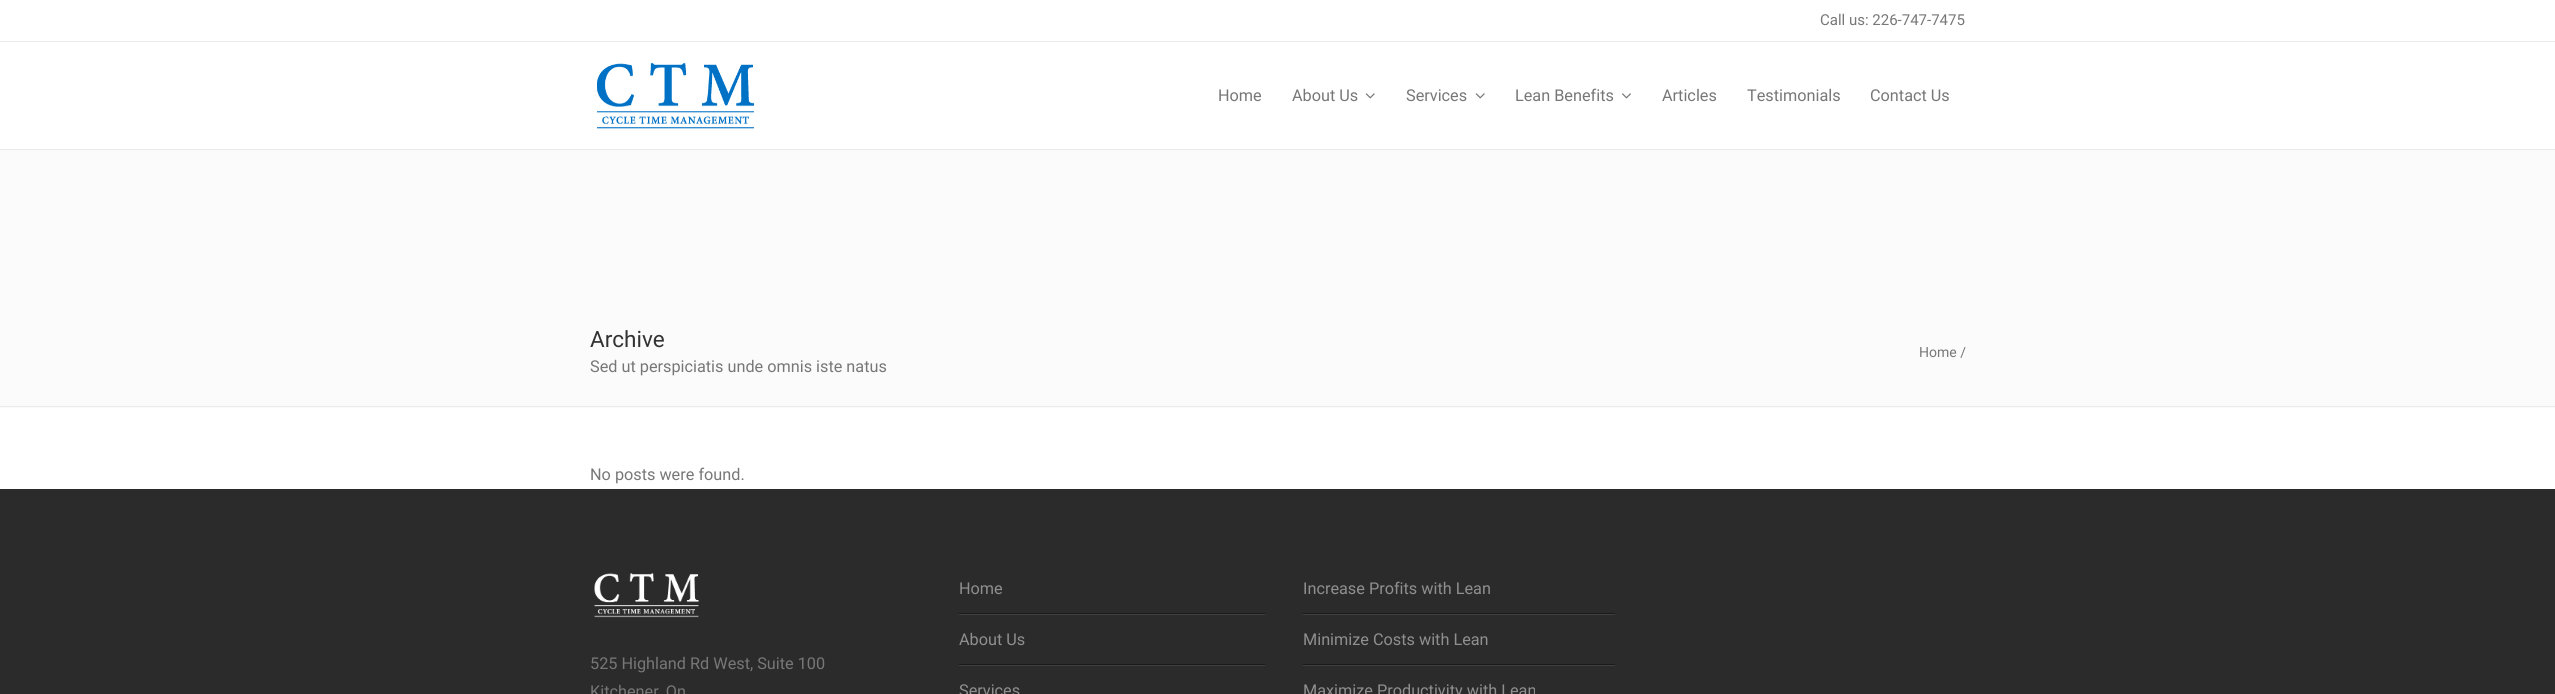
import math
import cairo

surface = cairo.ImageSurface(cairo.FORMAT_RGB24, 2555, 694)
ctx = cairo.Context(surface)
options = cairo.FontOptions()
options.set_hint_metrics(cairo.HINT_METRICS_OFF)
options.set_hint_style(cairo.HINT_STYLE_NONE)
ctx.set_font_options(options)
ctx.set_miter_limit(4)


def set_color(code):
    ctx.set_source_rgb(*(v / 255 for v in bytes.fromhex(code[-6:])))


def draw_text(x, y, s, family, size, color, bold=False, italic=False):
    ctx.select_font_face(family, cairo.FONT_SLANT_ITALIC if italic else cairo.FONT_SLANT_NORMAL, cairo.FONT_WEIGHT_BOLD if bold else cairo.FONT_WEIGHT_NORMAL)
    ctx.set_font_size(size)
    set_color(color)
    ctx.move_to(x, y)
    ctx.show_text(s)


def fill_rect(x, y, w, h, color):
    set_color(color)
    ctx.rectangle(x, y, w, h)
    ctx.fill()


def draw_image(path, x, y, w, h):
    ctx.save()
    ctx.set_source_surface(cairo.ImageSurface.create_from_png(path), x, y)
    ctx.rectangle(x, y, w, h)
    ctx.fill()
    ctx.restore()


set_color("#ffffff")
ctx.paint()
fill_rect(0, 41, 2555, 1, "#eaeaea")
draw_text(1820, 25, "Call us: 226-747-7475", "Roboto", 15, "#777777")
fill_rect(0, 149, 2555, 1, "#eaeaea")
draw_image("assets/img1.png", 596, 63, 159, 66)
draw_text(1218, 101, "Home", "Roboto", 16.25, "#777777")
draw_text(1292, 101, "About Us", "Roboto", 16.25, "#777777")
draw_image("assets/img2.png", 1365, 93, 10, 6)
draw_text(1406, 101, "Services", "Roboto", 16.25, "#777777")
draw_image("assets/img2.png", 1475, 93, 10, 6)
draw_text(1515, 101, "Lean Benefits", "Roboto", 16.25, "#777777")
draw_image("assets/img3.png", 1622, 93, 9, 6)
draw_text(1662, 101, "Articles", "Roboto", 16.25, "#777777")
draw_text(1747, 101, "Testimonials", "Roboto", 16.25, "#777777")
draw_text(1870, 101, "Contact Us", "Roboto", 16.25, "#777777")
fill_rect(0, 150, 2555, 258, "#fbfbfb")
fill_rect(0, 406, 2555, 1, "#eaeaea")
draw_text(590, 347, "Archive", "Roboto", 22.5, "#333333")
draw_text(1919, 357, "Home /", "Roboto", 14, "#777777")
draw_text(590, 372, "Sed ut perspiciatis unde omnis iste natus", "Roboto", 16.25, "#777777")
draw_text(590, 480, "No posts were found.", "Roboto", 16.25, "#777777")
fill_rect(0, 489, 2555, 205, "#2b2b2b")
draw_image("assets/img4.png", 594, 573, 105, 45)
draw_text(590, 669, "525 Highland Rd West, Suite 100", "Roboto", 16.25, "#777777")
draw_text(590, 697, "Kitchener, On", "Roboto", 16.25, "#777777")
fill_rect(959, 614, 306, 1, "#404040")
draw_text(959, 594, "Home", "Roboto", 16.25, "#8f8f8f")
fill_rect(959, 613, 306, 1, "#1a1a1a")
fill_rect(959, 665, 306, 1, "#404040")
draw_text(959, 645, "About Us", "Roboto", 16.25, "#8f8f8f")
fill_rect(959, 664, 306, 1, "#1a1a1a")
draw_text(959, 696, "Services", "Roboto", 16.25, "#8f8f8f")
fill_rect(1303, 614, 312, 1, "#404040")
draw_text(1303, 594, "Increase Profits with Lean", "Roboto", 16.25, "#8f8f8f")
fill_rect(1303, 613, 312, 1, "#1a1a1a")
fill_rect(1303, 665, 312, 1, "#404040")
draw_text(1303, 645, "Minimize Costs with Lean", "Roboto", 16.25, "#8f8f8f")
fill_rect(1303, 664, 312, 1, "#1a1a1a")
draw_text(1303, 696, "Maximize Productivity with Lean", "Roboto", 16.25, "#8f8f8f")
surface.write_to_png("output.png")
